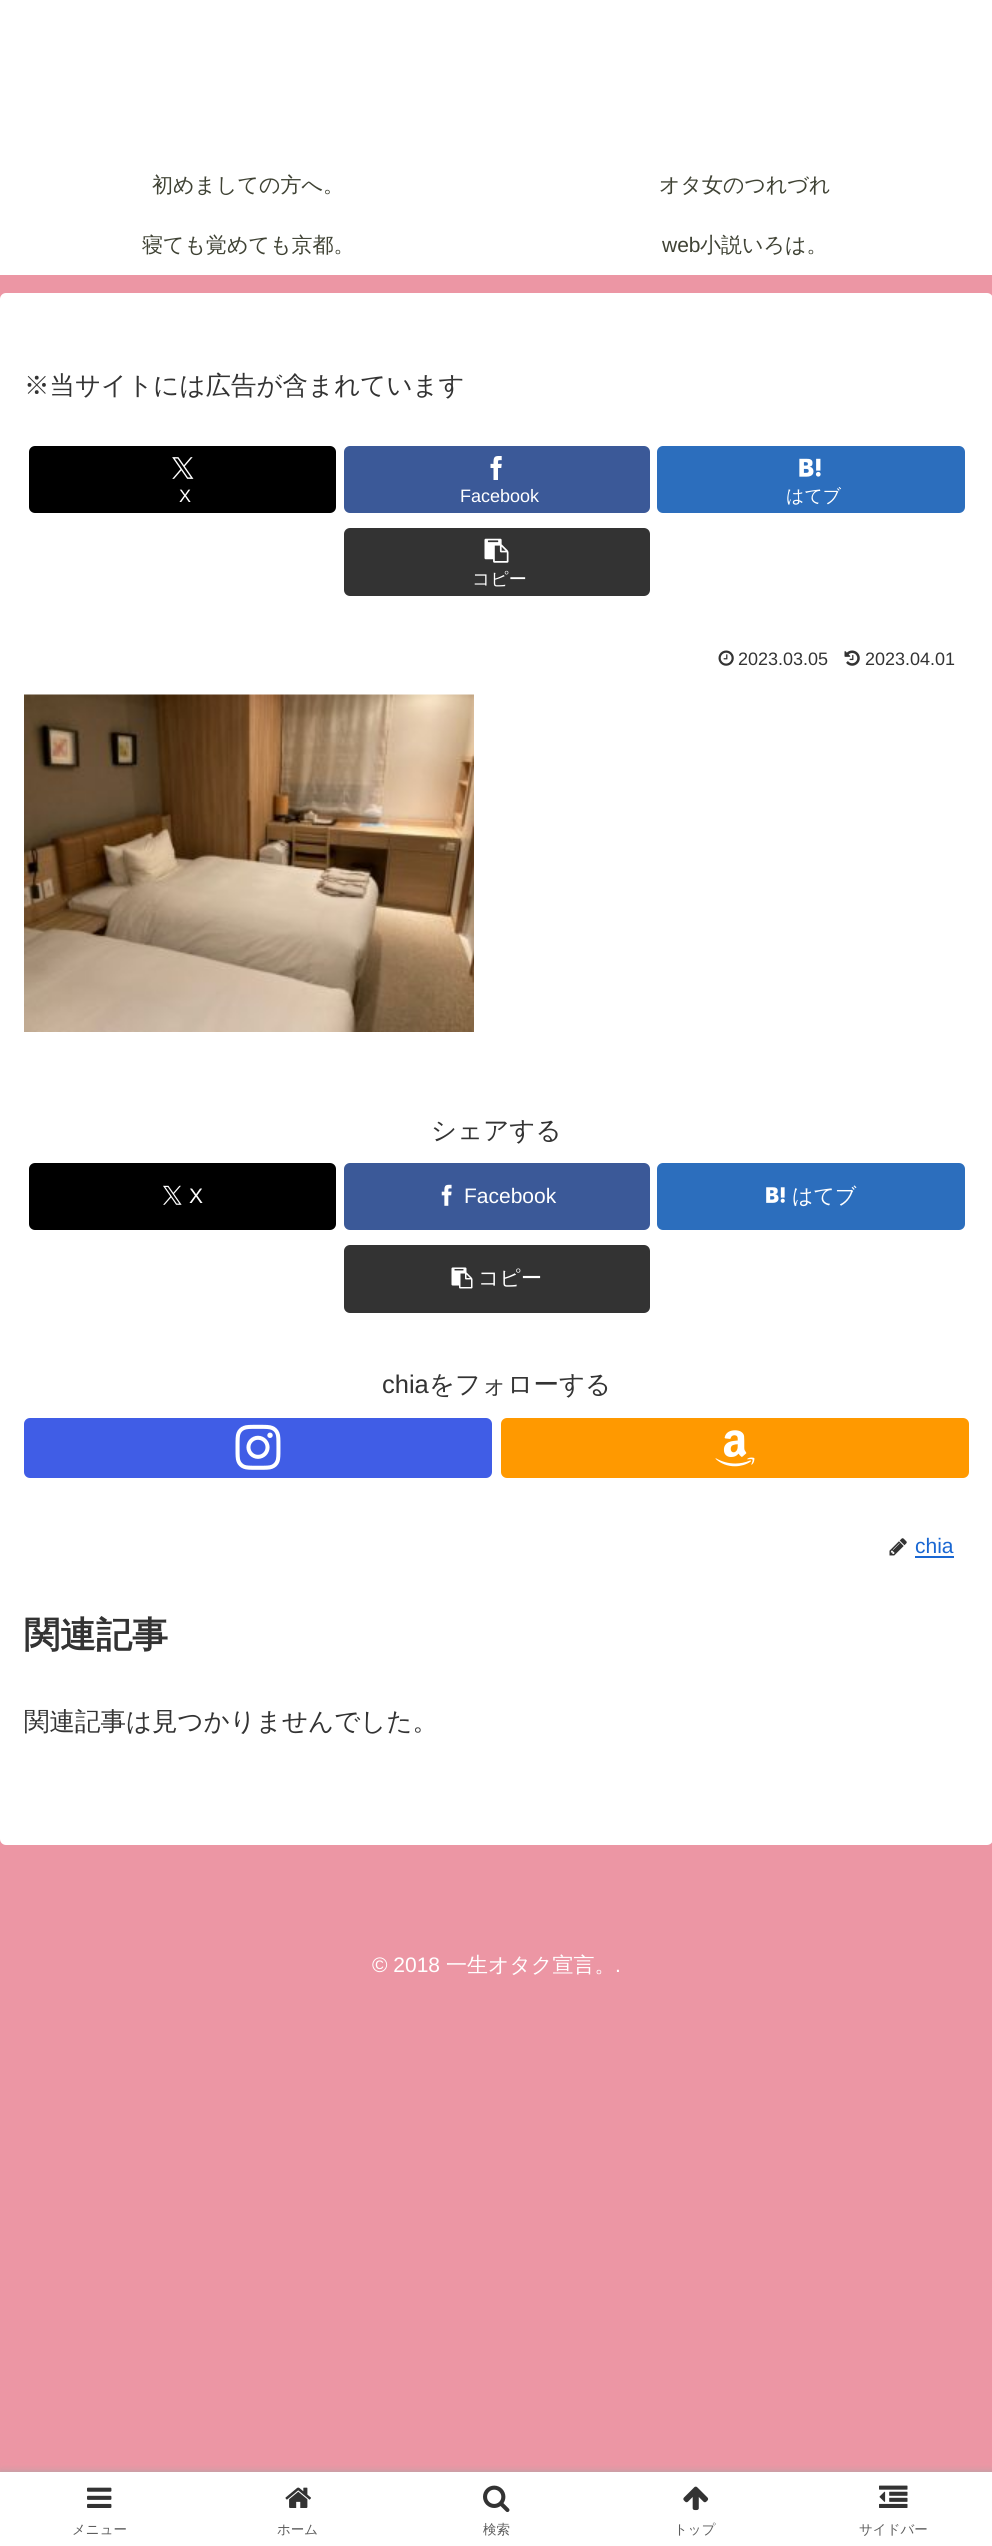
import math
import cairo

surface = cairo.ImageSurface(cairo.FORMAT_RGB24, 992, 2546)
ctx = cairo.Context(surface)
options = cairo.FontOptions()
options.set_hint_metrics(cairo.HINT_METRICS_OFF)
options.set_hint_style(cairo.HINT_STYLE_NONE)
ctx.set_font_options(options)
ctx.set_miter_limit(4)


def set_color(code):
    ctx.set_source_rgb(*(v / 255 for v in bytes.fromhex(code[-6:])))


def draw_text(x, y, s, family, size, color, bold=False, italic=False):
    ctx.select_font_face(family, cairo.FONT_SLANT_ITALIC if italic else cairo.FONT_SLANT_NORMAL, cairo.FONT_WEIGHT_BOLD if bold else cairo.FONT_WEIGHT_NORMAL)
    ctx.set_font_size(size)
    set_color(color)
    ctx.move_to(x, y)
    ctx.show_text(s)


def fill_rect(x, y, w, h, color):
    set_color(color)
    ctx.rectangle(x, y, w, h)
    ctx.fill()


def rounded_rect(x, y, w, h, r):
    ctx.new_sub_path()
    for i, (u, v) in enumerate([(x + w - r, y + h - r), (x + r, y + h - r), (x + r, y + r), (x + w - r, y + r)]):
        ctx.arc(u, v, r, i * math.pi / 2, (i + 1) * math.pi / 2)
    ctx.close_path()


def draw_shadow(x, y, w, h, r, blur, alpha):
    ctx.push_group_with_content(cairo.CONTENT_ALPHA)
    ctx.set_operator(cairo.OPERATOR_SOURCE)
    for i in range(15, -16, -2):
        e = blur * i / 6
        if min(w, h) + 2 * e > 0:
            ctx.set_source_rgba(0, 0, 0, alpha * math.erfc((i - 1) / 8.5) / 2)
            rounded_rect(x - e, y - e, w + 2 * e, h + 2 * e, max(0, min(r + e + blur * .6, min(w, h) / 2 + e)))
            ctx.fill()
    ctx.mask(ctx.pop_group())


def draw_image(path, x, y, w, h):
    ctx.save()
    ctx.set_source_surface(cairo.ImageSurface.create_from_png(path), x, y)
    ctx.rectangle(x, y, w, h)
    ctx.fill()
    ctx.restore()


set_color("#ec96a4")
ctx.paint()
fill_rect(0, 0, 992, 275, "#ffffff")
draw_text(152, 192, "初めましての方へ。", "WenQuanYi Zen Hei Medium", 21, "#3f4234")
draw_text(659, 192, "オタ女のつれづれ", "WenQuanYi Zen Hei Medium", 21, "#3f4234")
draw_text(142, 252, "寝ても覚めても京都。", "WenQuanYi Zen Hei Medium", 21, "#3f4234")
draw_text(662, 252, "web", "Liberation Sans", 21, "#3f4234")
draw_text(700, 252, "小説いろは。", "WenQuanYi Zen Hei Medium", 21, "#3f4234")
set_color("#ffffff")
rounded_rect(0, 293, 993, 1552, 6)
ctx.fill()
draw_text(24, 394, "※当サイトには広告が含まれています", "WenQuanYi Zen Hei Medium", 25.5, "#333333")
set_color("#000000")
rounded_rect(29, 446, 307, 67, 6)
ctx.fill()
draw_image("assets/img1.png", 172, 457, 22, 22)
draw_text(179, 502, "X", "Liberation Sans", 18, "#ffffff")
set_color("#3b5998")
rounded_rect(344, 446, 306, 67, 6)
ctx.fill()
draw_image("assets/img2.png", 490, 456, 12, 24)
draw_text(460, 502, "Facebook", "Liberation Sans", 18, "#ffffff")
set_color("#2c6ebd")
rounded_rect(657, 446, 308, 67, 6)
ctx.fill()
draw_image("assets/img3.png", 799, 458, 22, 19)
draw_text(786, 502, "はてブ", "WenQuanYi Zen Hei Medium", 18, "#ffffff")
set_color("#333333")
rounded_rect(344, 528, 306, 68, 6)
ctx.fill()
draw_image("assets/img4.png", 484, 538, 25, 25)
draw_text(472, 585, "コピー", "WenQuanYi Zen Hei Medium", 18, "#ffffff")
draw_image("assets/img5.png", 718, 650, 16, 16)
draw_text(738, 665, "2023.03.05", "Liberation Sans", 18, "#333333")
draw_image("assets/img6.png", 844, 650, 16, 16)
draw_text(865, 665, "2023.04.01", "Liberation Sans", 18, "#333333")
draw_image("assets/img7.png", 24, 694, 450, 338)
draw_text(431, 1139, "シェアする", "WenQuanYi Zen Hei Medium", 25.5, "#333333")
set_color("#000000")
rounded_rect(29, 1163, 307, 67, 6)
ctx.fill()
draw_image("assets/img8.png", 163, 1185, 19, 20)
draw_text(189, 1203, "X", "Liberation Sans", 21, "#ffffff")
set_color("#3b5998")
rounded_rect(344, 1163, 306, 67, 6)
ctx.fill()
draw_image("assets/img9.png", 441, 1184, 11, 22)
draw_text(464, 1203, "Facebook", "Liberation Sans", 21, "#ffffff")
set_color("#2c6ebd")
rounded_rect(657, 1163, 308, 67, 6)
ctx.fill()
draw_image("assets/img10.png", 766, 1187, 19, 16)
draw_text(792, 1203, "はてブ", "WenQuanYi Zen Hei Medium", 21, "#ffffff")
set_color("#333333")
rounded_rect(344, 1245, 306, 68, 6)
ctx.fill()
draw_image("assets/img11.png", 451, 1267, 22, 22)
draw_text(478, 1285, "コピー", "WenQuanYi Zen Hei Medium", 21, "#ffffff")
draw_text(382, 1393, "chia", "Liberation Sans", 25.5, "#333333")
draw_text(429, 1393, "をフォローする", "WenQuanYi Zen Hei Medium", 25.5, "#333333")
set_color("#405de6")
rounded_rect(24, 1418, 468, 60, 6)
ctx.fill()
draw_image("assets/img12.png", 235, 1424, 46, 46)
set_color("#ff9900")
rounded_rect(501, 1418, 468, 60, 6)
ctx.fill()
draw_image("assets/img13.png", 715, 1430, 40, 37)
draw_image("assets/img14.png", 889, 1538, 18, 18)
draw_text(915, 1553, "chia", "Liberation Sans", 21, "#1967d2")
fill_rect(915, 1556, 39, 2, "#1967d2")
draw_text(24, 1647, "関連記事", "WenQuanYi Zen Hei", 36, "#333333", bold=True)
draw_text(24, 1730, "関連記事は見つかりませんでした。", "WenQuanYi Zen Hei Medium", 25.5, "#333333")
draw_text(372, 1972, "© 2018", "Liberation Sans", 21, "#ffffff")
draw_text(446, 1972, "一生オタク宣言。", "WenQuanYi Zen Hei Medium", 21, "#ffffff")
draw_text(615, 1972, ".", "Liberation Sans", 21, "#ffffff")
set_color("#a9a9a9")
draw_shadow(0, 2472, 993, 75, 0, 4, 1)
fill_rect(0, 2472, 992, 74, "#ffffff")
draw_image("assets/img15.png", 87, 2487, 25, 21)
draw_text(72, 2534, "メニュー", "WenQuanYi Zen Hei Medium", 13.5, "#5c5c5c")
draw_image("assets/img16.png", 285, 2487, 26, 21)
draw_text(277, 2534, "ホーム", "WenQuanYi Zen Hei Medium", 13.5, "#5c5c5c")
draw_image("assets/img17.png", 483, 2485, 27, 28)
draw_text(483, 2534, "検索", "WenQuanYi Zen Hei Medium", 13.5, "#5c5c5c")
draw_image("assets/img18.png", 683, 2486, 26, 25)
draw_text(674, 2534, "トップ", "WenQuanYi Zen Hei Medium", 13.5, "#5c5c5c")
draw_image("assets/img19.png", 879, 2485, 29, 23)
draw_text(859, 2534, "サイドバー", "WenQuanYi Zen Hei Medium", 13.5, "#5c5c5c")
surface.write_to_png("output.png")
